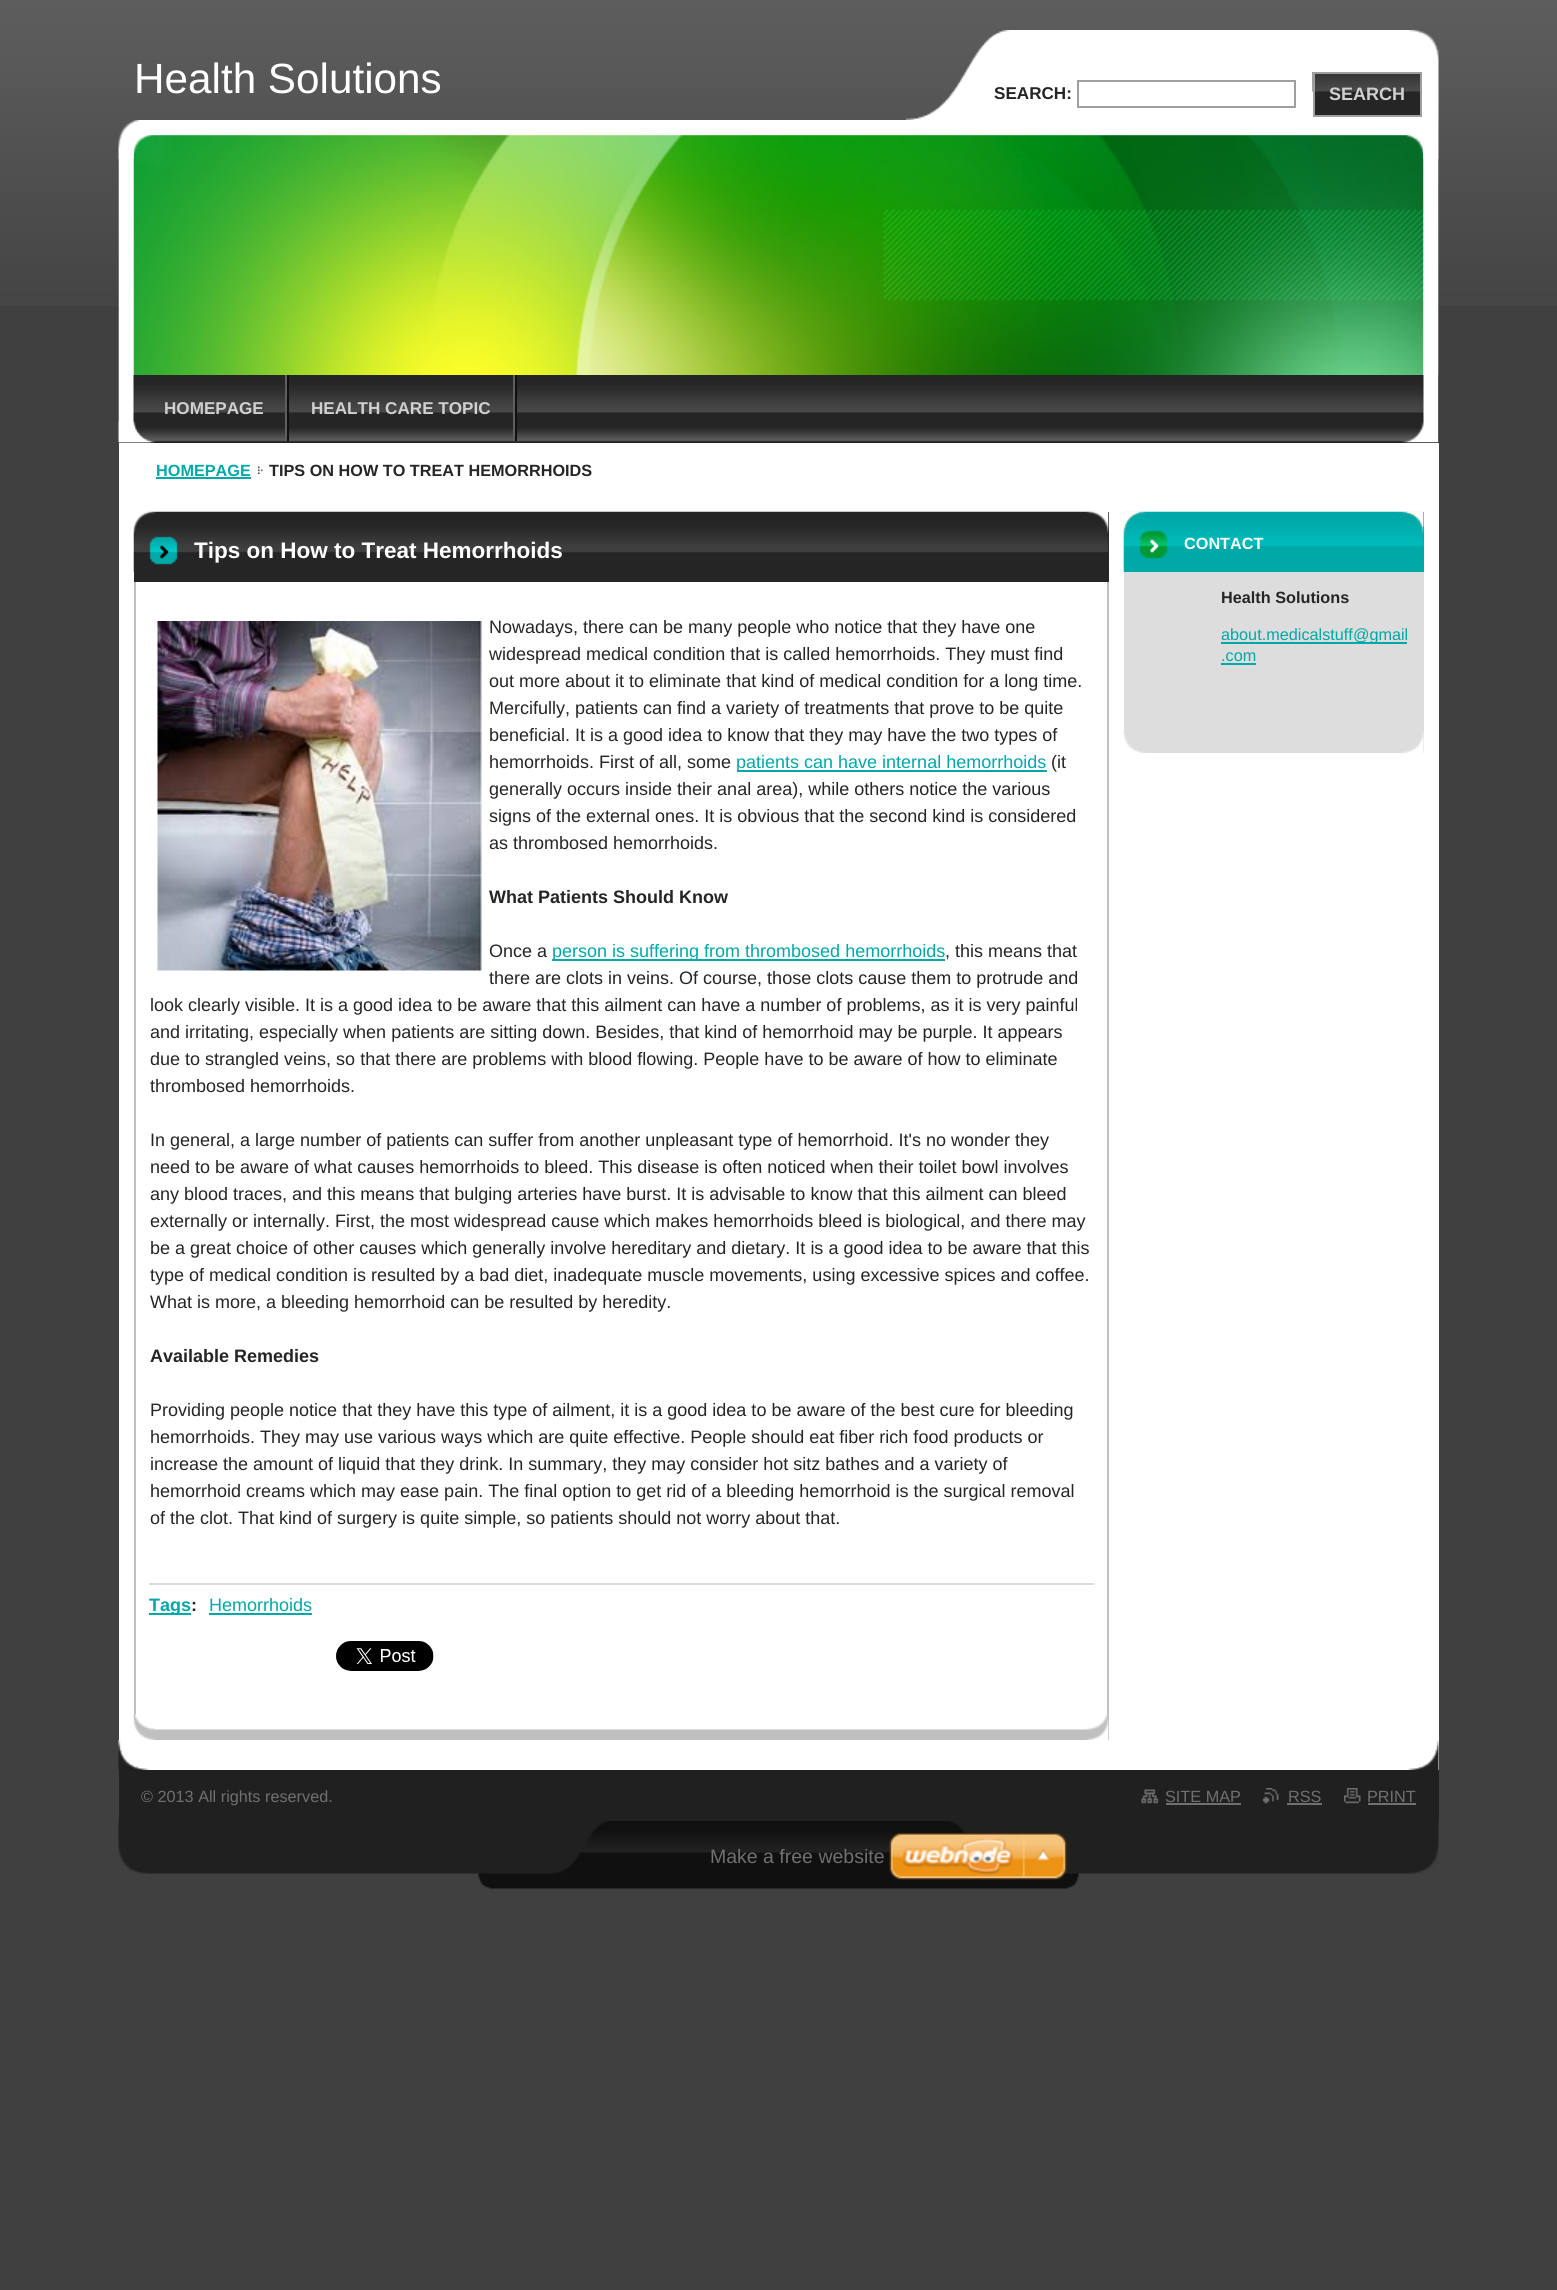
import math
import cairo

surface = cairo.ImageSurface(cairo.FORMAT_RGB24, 1557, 2290)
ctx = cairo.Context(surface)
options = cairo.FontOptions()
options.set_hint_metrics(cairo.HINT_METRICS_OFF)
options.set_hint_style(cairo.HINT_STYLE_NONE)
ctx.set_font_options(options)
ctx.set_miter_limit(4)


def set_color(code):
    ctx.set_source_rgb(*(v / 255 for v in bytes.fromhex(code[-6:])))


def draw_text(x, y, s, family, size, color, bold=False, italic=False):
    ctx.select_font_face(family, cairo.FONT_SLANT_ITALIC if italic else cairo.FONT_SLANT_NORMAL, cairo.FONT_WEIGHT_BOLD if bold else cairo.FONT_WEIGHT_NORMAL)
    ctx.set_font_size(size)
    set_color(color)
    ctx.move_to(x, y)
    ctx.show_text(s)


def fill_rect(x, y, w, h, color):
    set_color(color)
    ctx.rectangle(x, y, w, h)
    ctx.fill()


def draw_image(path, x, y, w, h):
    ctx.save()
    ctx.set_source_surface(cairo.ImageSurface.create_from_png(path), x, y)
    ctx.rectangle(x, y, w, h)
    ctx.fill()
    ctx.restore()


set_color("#404040")
ctx.paint()
draw_image("assets/img1.png", 0, 0, 1557, 306)
draw_text(134, 93, "Health Solutions", "Liberation Sans", 42.25, "#ffffff")
draw_image("assets/img2.png", 118, 120, 1321, 255)
draw_image("assets/img4.png", 133, 135, 1291, 240)
draw_image("assets/img3.png", 118, 120, 1321, 39)
fill_rect(119, 375, 1320, 68, "#222222")
draw_image("assets/img5.png", 118, 375, 1321, 68)
fill_rect(287, 375, 2, 66, "#101010")
fill_rect(285, 375, 2, 66, "#5f5f5f")
draw_text(164, 414, "HOMEPAGE", "Liberation Sans", 17.1, "#d0d0d0", bold=True)
fill_rect(515, 375, 2, 66, "#101010")
fill_rect(513, 375, 2, 66, "#5f5f5f")
draw_text(311, 414, "HEALTH CARE TOPIC", "Liberation Sans", 17.1, "#d0d0d0", bold=True)
draw_image("assets/img6.png", 118, 421, 35, 22)
draw_image("assets/img7.png", 906, 30, 533, 90)
draw_text(994, 99, "SEARCH:", "Liberation Sans", 17.1, "#252525", bold=True)
ctx.rectangle(1078, 81, 217, 26)
set_color("#9f9f9f")
ctx.stroke()
fill_rect(1315, 91, 105, 24, "#252525")
draw_image("assets/img8.png", 1312, 72, 108, 20)
ctx.rectangle(1314, 73, 107, 43)
set_color("#9f9f9f")
ctx.stroke()
draw_text(1329, 100, "SEARCH", "Liberation Sans", 18, "#d0d0d0", bold=True)
fill_rect(119, 443, 1320, 1327, "#ffffff")
draw_text(156, 476, "HOMEPAGE", "Liberation Sans", 16.25, "#00a8a8", bold=True)
fill_rect(156, 477, 95, 2, "#00a8a8")
draw_image("assets/img9.png", 258, 466, 5, 8)
draw_text(269, 476, "TIPS ON HOW TO TREAT HEMORRHOIDS", "Liberation Sans", 16.25, "#252525", bold=True)
draw_image("assets/img10.png", 118, 1740, 1321, 30)
fill_rect(1108, 512, 1, 22, "#252525")
draw_image("assets/img11.png", 133, 511, 976, 23)
fill_rect(1107, 582, 2, 1148, "#c0c0c0")
fill_rect(1108, 1730, 1, 10, "#c0c0c0")
fill_rect(134, 582, 2, 1133, "#c0c0c0")
draw_image("assets/img12.png", 133, 1714, 976, 26)
fill_rect(134, 534, 975, 48, "#252525")
draw_image("assets/img13.png", 133, 534, 976, 38)
draw_text(194, 558, "Tips on How to Treat Hemorrhoids", "Liberation Sans", 22.5, "#ffffff", bold=True)
draw_image("assets/img14.png", 157, 621, 325, 350)
draw_text(489, 633, "Nowadays, there can be many people who notice that they have one", "Liberation Sans", 18, "#252525")
draw_text(489, 660, "widespread medical condition that is called hemorrhoids. They must find", "Liberation Sans", 18, "#252525")
draw_text(489, 687, "out more about it to eliminate that kind of medical condition for a long time.", "Liberation Sans", 18, "#252525")
draw_text(489, 714, "Mercifully, patients can find a variety of treatments that prove to be quite", "Liberation Sans", 18, "#252525")
draw_text(489, 741, "beneficial. It is a good idea to know that they may have the two types of", "Liberation Sans", 18, "#252525")
draw_text(489, 768, "hemorrhoids. First of all, some", "Liberation Sans", 18, "#252525")
fill_rect(737, 770, 310, 2, "#00a8a8")
draw_text(736, 768, "patients can have internal hemorrhoids", "Liberation Sans", 18, "#00a8a8")
draw_text(1051, 768, "(it", "Liberation Sans", 18, "#252525")
draw_text(489, 795, "generally occurs inside their anal area), while others notice the various", "Liberation Sans", 18, "#252525")
draw_text(489, 822, "signs of the external ones. It is obvious that the second kind is considered", "Liberation Sans", 18, "#252525")
draw_text(489, 849, "as thrombosed hemorrhoids.", "Liberation Sans", 18, "#252525")
draw_text(489, 903, "What Patients Should Know", "Liberation Sans", 18, "#252525", bold=True)
draw_text(489, 957, "Once a", "Liberation Sans", 18, "#252525")
fill_rect(552, 959, 393, 2, "#00a8a8")
draw_text(552, 957, "person is suffering from thrombosed hemorrhoids", "Liberation Sans", 18, "#00a8a8")
draw_text(945, 957, ", this means that", "Liberation Sans", 18, "#252525")
draw_text(489, 984, "there are clots in veins. Of course, those clots cause them to protrude and", "Liberation Sans", 18, "#252525")
draw_text(150, 1011, "look clearly visible. It is a good idea to be aware that this ailment can have a number of problems, as it is very painful", "Liberation Sans", 18, "#252525")
draw_text(150, 1038, "and irritating, especially when patients are sitting down. Besides, that kind of hemorrhoid may be purple. It appears", "Liberation Sans", 18, "#252525")
draw_text(150, 1065, "due to strangled veins, so that there are problems with blood flowing. People have to be aware of how to eliminate", "Liberation Sans", 18, "#252525")
draw_text(150, 1092, "thrombosed hemorrhoids.", "Liberation Sans", 18, "#252525")
draw_text(150, 1146, "In general, a large number of patients can suffer from another unpleasant type of hemorrhoid. It's no wonder they", "Liberation Sans", 18, "#252525")
draw_text(150, 1173, "need to be aware of what causes hemorrhoids to bleed. This disease is often noticed when their toilet bowl involves", "Liberation Sans", 18, "#252525")
draw_text(150, 1200, "any blood traces, and this means that bulging arteries have burst. It is advisable to know that this ailment can bleed", "Liberation Sans", 18, "#252525")
draw_text(150, 1227, "externally or internally. First, the most widespread cause which makes hemorrhoids bleed is biological, and there may", "Liberation Sans", 18, "#252525")
draw_text(150, 1254, "be a great choice of other causes which generally involve hereditary and dietary. It is a good idea to be aware that this", "Liberation Sans", 18, "#252525")
draw_text(150, 1281, "type of medical condition is resulted by a bad diet, inadequate muscle movements, using excessive spices and coffee.", "Liberation Sans", 18, "#252525")
draw_text(150, 1308, "What is more, a bleeding hemorrhoid can be resulted by heredity.", "Liberation Sans", 18, "#252525")
draw_text(150, 1362, "Available Remedies", "Liberation Sans", 18, "#252525", bold=True)
draw_text(150, 1416, "Providing people notice that they have this type of ailment, it is a good idea to be aware of the best cure for bleeding", "Liberation Sans", 18, "#252525")
draw_text(150, 1443, "hemorrhoids. They may use various ways which are quite effective. People should eat fiber rich food products or", "Liberation Sans", 18, "#252525")
draw_text(150, 1470, "increase the amount of liquid that they drink. In summary, they may consider hot sitz bathes and a variety of", "Liberation Sans", 18, "#252525")
draw_text(150, 1497, "hemorrhoid creams which may ease pain. The final option to get rid of a bleeding hemorrhoid is the surgical removal", "Liberation Sans", 18, "#252525")
draw_text(150, 1524, "of the clot. That kind of surgery is quite simple, so patients should not worry about that.", "Liberation Sans", 18, "#252525")
fill_rect(149, 1583, 945, 2, "#dddddd")
fill_rect(149, 1613, 42, 2, "#00a8a8")
draw_text(149, 1611, "Tags", "Liberation Sans", 18, "#00a8a8", bold=True)
draw_text(191, 1611, ":", "Liberation Sans", 18, "#252525", bold=True)
draw_text(209, 1611, "Hemorrhoids", "Liberation Sans", 18, "#00a8a8")
fill_rect(209, 1613, 103, 2, "#00a8a8")
draw_image("assets/img15.png", 336, 1641, 98, 30)
fill_rect(1124, 572, 300, 181, "#dddddd")
draw_image("assets/img16.png", 1123, 730, 301, 23)
fill_rect(1124, 512, 300, 60, "#00a8a8")
draw_image("assets/img18.png", 1123, 511, 301, 61)
draw_image("assets/img17.png", 1123, 511, 301, 18)
draw_text(1184, 549, "CONTACT", "Liberation Sans", 16.25, "#ffffff", bold=True)
draw_text(1221, 603, "Health Solutions", "Liberation Sans", 16.25, "#252525", bold=True)
fill_rect(1221, 642, 186, 2, "#00a8a8")
draw_text(1221, 640, "about.medicalstuff@gmail", "Liberation Sans", 16.25, "#00a8a8")
draw_text(1221, 661, ".com", "Liberation Sans", 16.25, "#00a8a8")
fill_rect(1221, 663, 35, 2, "#00a8a8")
fill_rect(119, 1770, 1320, 51, "#202020")
draw_text(141, 1802, "© 2013 All rights reserved.", "Liberation Sans", 16.25, "#707070")
draw_image("assets/img19.png", 1141, 1789, 18, 15)
draw_text(1165, 1802, "SITE MAP", "Liberation Sans", 16.25, "#707070")
fill_rect(1166, 1803, 75, 2, "#707070")
draw_image("assets/img20.png", 1263, 1788, 16, 16)
draw_text(1288, 1802, "RSS", "Liberation Sans", 16.25, "#707070")
fill_rect(1287, 1803, 35, 2, "#707070")
draw_image("assets/img21.png", 1344, 1788, 17, 16)
draw_text(1367, 1802, "PRINT", "Liberation Sans", 16.25, "#707070")
fill_rect(1368, 1803, 48, 2, "#707070")
draw_image("assets/img22.png", 118, 1821, 1321, 68)
draw_text(710, 1863, "Make a free website", "Liberation Sans", 19.5, "#707070")
draw_image("assets/img23.png", 889, 1833, 178, 47)
surface.write_to_png("output.png")
